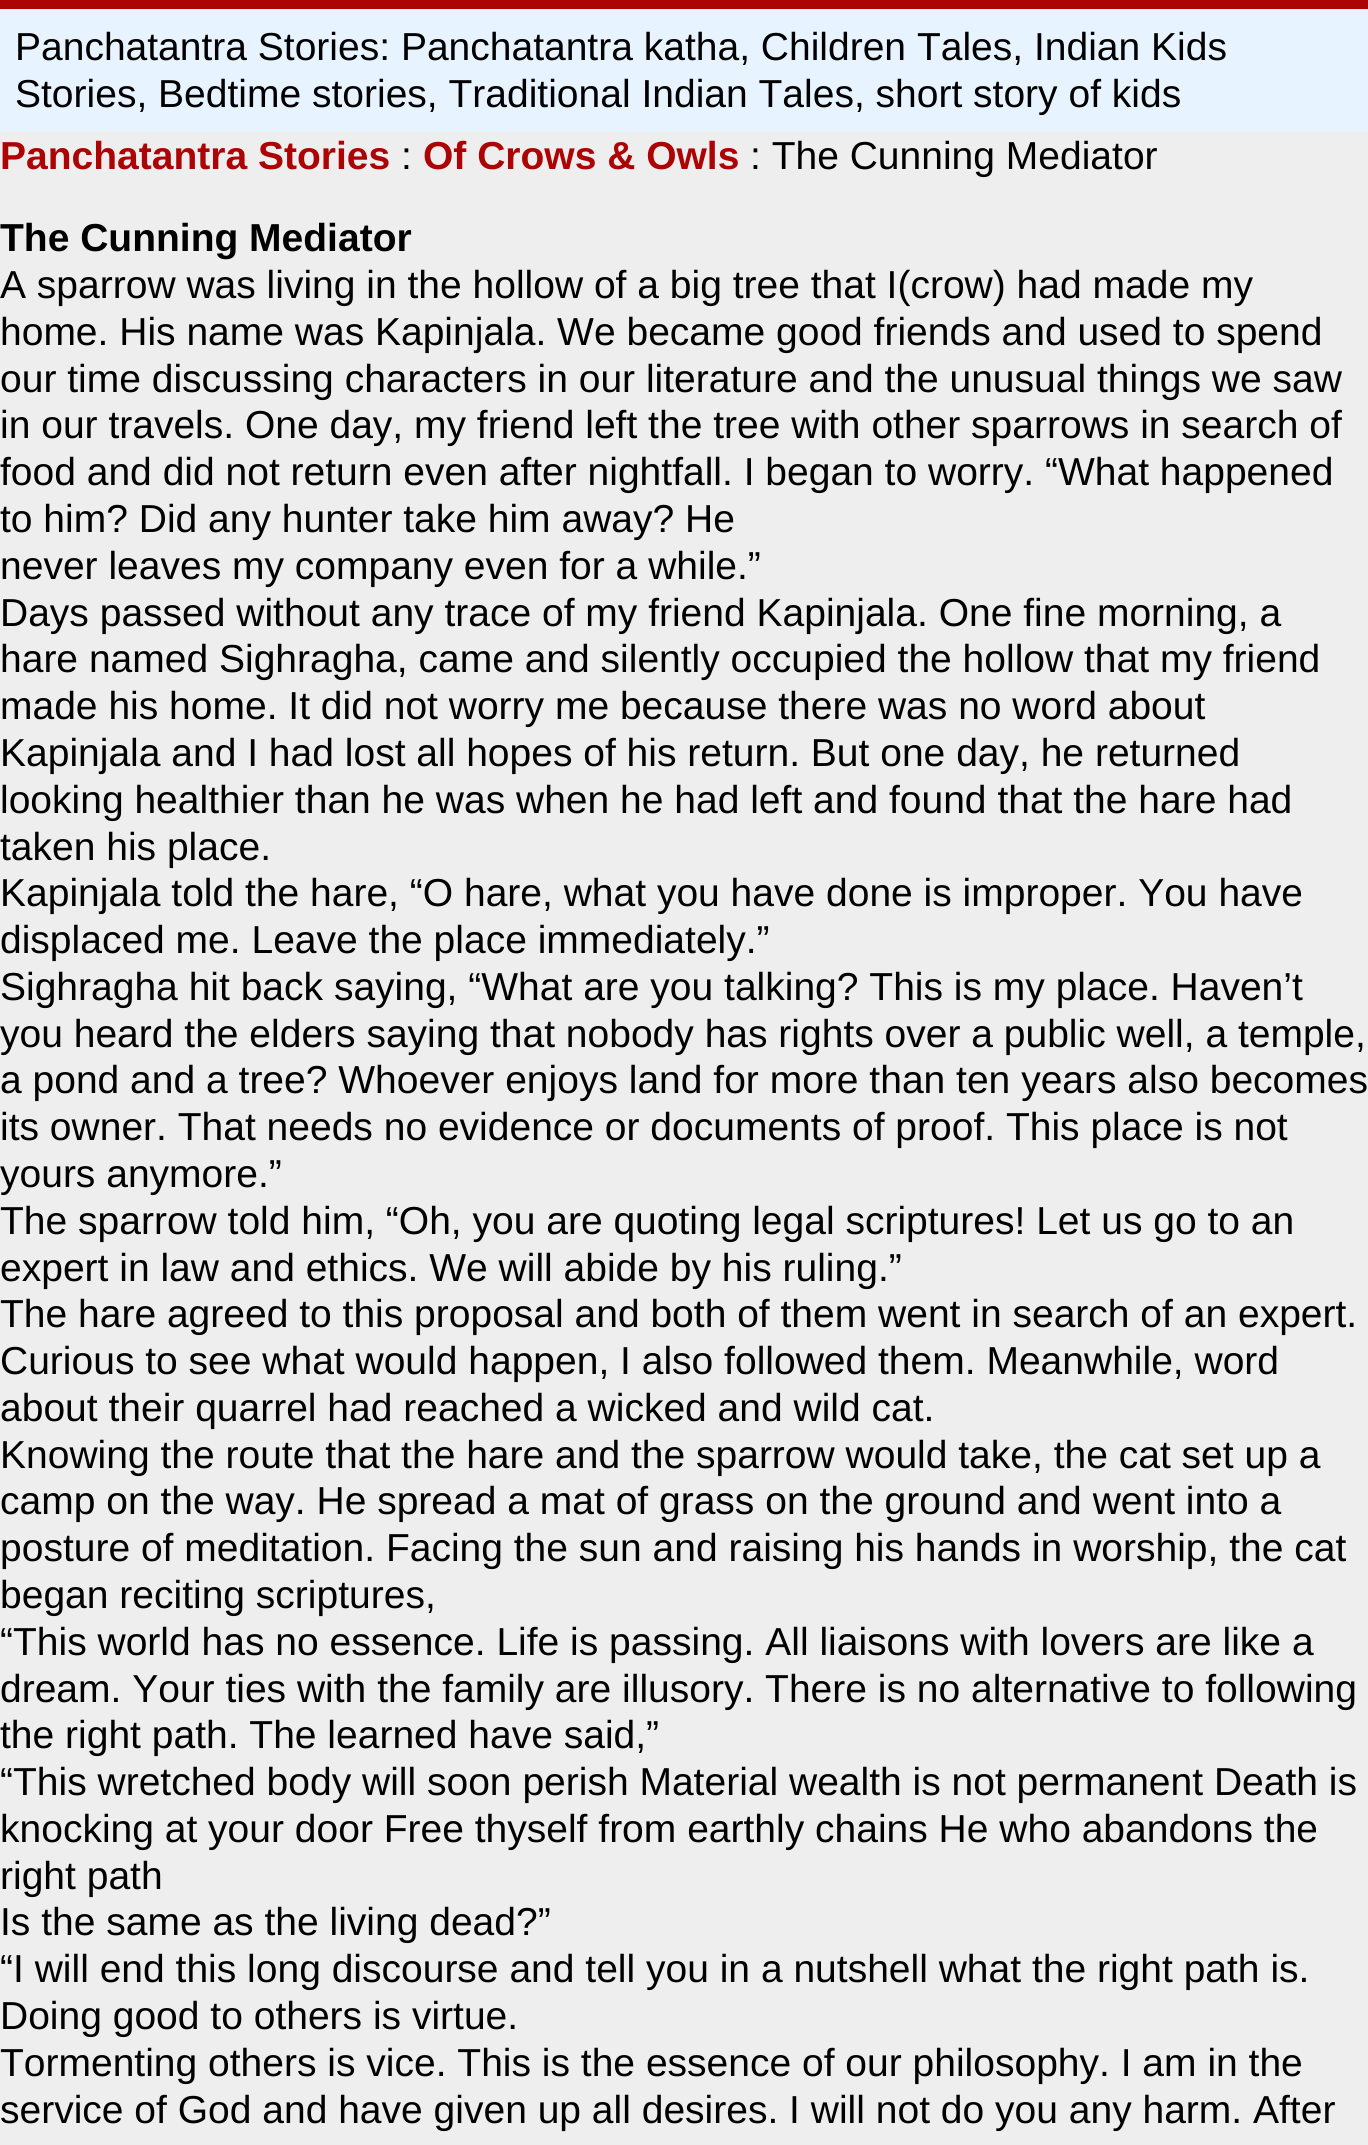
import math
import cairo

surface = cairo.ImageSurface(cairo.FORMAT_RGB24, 1368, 2145)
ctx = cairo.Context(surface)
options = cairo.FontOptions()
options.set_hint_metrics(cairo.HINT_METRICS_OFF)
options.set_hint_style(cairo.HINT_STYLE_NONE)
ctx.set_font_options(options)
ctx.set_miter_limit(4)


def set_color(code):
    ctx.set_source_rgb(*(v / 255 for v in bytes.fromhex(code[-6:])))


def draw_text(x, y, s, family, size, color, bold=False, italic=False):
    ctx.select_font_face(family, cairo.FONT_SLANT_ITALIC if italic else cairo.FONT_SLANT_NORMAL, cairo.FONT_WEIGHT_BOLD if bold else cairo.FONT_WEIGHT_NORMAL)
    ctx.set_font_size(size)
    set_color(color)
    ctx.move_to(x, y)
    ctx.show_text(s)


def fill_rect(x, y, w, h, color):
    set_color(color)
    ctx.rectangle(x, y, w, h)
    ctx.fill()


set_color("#eeeeee")
ctx.paint()
fill_rect(0, 9, 1368, 123, "#e7f4ff")
fill_rect(0, 0, 1368, 9, "#ac0304")
draw_text(15, 60, "Panchatantra Stories: Panchatantra katha, Children Tales, Indian Kids", "Liberation Sans", 39, "#000000")
draw_text(15, 107, "Stories, Bedtime stories, Traditional Indian Tales, short story of kids", "Liberation Sans", 39, "#000000")
draw_text(0, 169, "Panchatantra Stories", "Liberation Sans", 39, "#ac0304", bold=True)
draw_text(401, 169, ":", "Liberation Sans", 39, "#000000")
draw_text(423, 169, "Of Crows & Owls", "Liberation Sans", 39, "#ac0304", bold=True)
draw_text(750, 169, ": The Cunning Mediator", "Liberation Sans", 39, "#000000")
draw_text(0, 251, "The Cunning Mediator", "Liberation Sans", 39, "#000000", bold=True)
draw_text(0, 298, "A sparrow was living in the hollow of a big tree that I(crow) had made my", "Liberation Sans", 39, "#000000")
draw_text(0, 345, "home. His name was Kapinjala. We became good friends and used to spend", "Liberation Sans", 39, "#000000")
draw_text(0, 392, "our time discussing characters in our literature and the unusual things we saw", "Liberation Sans", 39, "#000000")
draw_text(0, 438, "in our travels. One day, my friend left the tree with other sparrows in search of", "Liberation Sans", 39, "#000000")
draw_text(0, 485, "food and did not return even after nightfall. I began to worry. “What happened", "Liberation Sans", 39, "#000000")
draw_text(0, 532, "to him? Did any hunter take him away? He", "Liberation Sans", 39, "#000000")
draw_text(0, 579, "never leaves my company even for a while.”", "Liberation Sans", 39, "#000000")
draw_text(0, 626, "Days passed without any trace of my friend Kapinjala. One fine morning, a", "Liberation Sans", 39, "#000000")
draw_text(0, 672, "hare named Sighragha, came and silently occupied the hollow that my friend", "Liberation Sans", 39, "#000000")
draw_text(0, 719, "made his home. It did not worry me because there was no word about", "Liberation Sans", 39, "#000000")
draw_text(0, 766, "Kapinjala and I had lost all hopes of his return. But one day, he returned", "Liberation Sans", 39, "#000000")
draw_text(0, 813, "looking healthier than he was when he had left and found that the hare had", "Liberation Sans", 39, "#000000")
draw_text(0, 860, "taken his place.", "Liberation Sans", 39, "#000000")
draw_text(0, 906, "Kapinjala told the hare, “O hare, what you have done is improper. You have", "Liberation Sans", 39, "#000000")
draw_text(0, 953, "displaced me. Leave the place immediately.”", "Liberation Sans", 39, "#000000")
draw_text(0, 1000, "Sighragha hit back saying, “What are you talking? This is my place. Haven’t", "Liberation Sans", 39, "#000000")
draw_text(0, 1047, "you heard the elders saying that nobody has rights over a public well, a temple,", "Liberation Sans", 39, "#000000")
draw_text(0, 1093, "a pond and a tree? Whoever enjoys land for more than ten years also becomes", "Liberation Sans", 39, "#000000")
draw_text(0, 1140, "its owner. That needs no evidence or documents of proof. This place is not", "Liberation Sans", 39, "#000000")
draw_text(0, 1187, "yours anymore.”", "Liberation Sans", 39, "#000000")
draw_text(0, 1234, "The sparrow told him, “Oh, you are quoting legal scriptures! Let us go to an", "Liberation Sans", 39, "#000000")
draw_text(0, 1281, "expert in law and ethics. We will abide by his ruling.”", "Liberation Sans", 39, "#000000")
draw_text(0, 1327, "The hare agreed to this proposal and both of them went in search of an expert.", "Liberation Sans", 39, "#000000")
draw_text(0, 1374, "Curious to see what would happen, I also followed them. Meanwhile, word", "Liberation Sans", 39, "#000000")
draw_text(0, 1421, "about their quarrel had reached a wicked and wild cat.", "Liberation Sans", 39, "#000000")
draw_text(0, 1468, "Knowing the route that the hare and the sparrow would take, the cat set up a", "Liberation Sans", 39, "#000000")
draw_text(0, 1514, "camp on the way. He spread a mat of grass on the ground and went into a", "Liberation Sans", 39, "#000000")
draw_text(0, 1561, "posture of meditation. Facing the sun and raising his hands in worship, the cat", "Liberation Sans", 39, "#000000")
draw_text(0, 1608, "began reciting scriptures,", "Liberation Sans", 39, "#000000")
draw_text(0, 1655, "“This world has no essence. Life is passing. All liaisons with lovers are like a", "Liberation Sans", 39, "#000000")
draw_text(0, 1702, "dream. Your ties with the family are illusory. There is no alternative to following", "Liberation Sans", 39, "#000000")
draw_text(0, 1748, "the right path. The learned have said,”", "Liberation Sans", 39, "#000000")
draw_text(0, 1795, "“This wretched body will soon perish Material wealth is not permanent Death is", "Liberation Sans", 39, "#000000")
draw_text(0, 1842, "knocking at your door Free thyself from earthly chains He who abandons the", "Liberation Sans", 39, "#000000")
draw_text(0, 1889, "right path", "Liberation Sans", 39, "#000000")
draw_text(0, 1935, "Is the same as the living dead?”", "Liberation Sans", 39, "#000000")
draw_text(0, 1982, "“I will end this long discourse and tell you in a nutshell what the right path is.", "Liberation Sans", 39, "#000000")
draw_text(0, 2029, "Doing good to others is virtue.", "Liberation Sans", 39, "#000000")
draw_text(0, 2076, "Tormenting others is vice. This is the essence of our philosophy. I am in the", "Liberation Sans", 39, "#000000")
draw_text(0, 2123, "service of God and have given up all desires. I will not do you any harm. After", "Liberation Sans", 39, "#000000")
surface.write_to_png("output.png")
